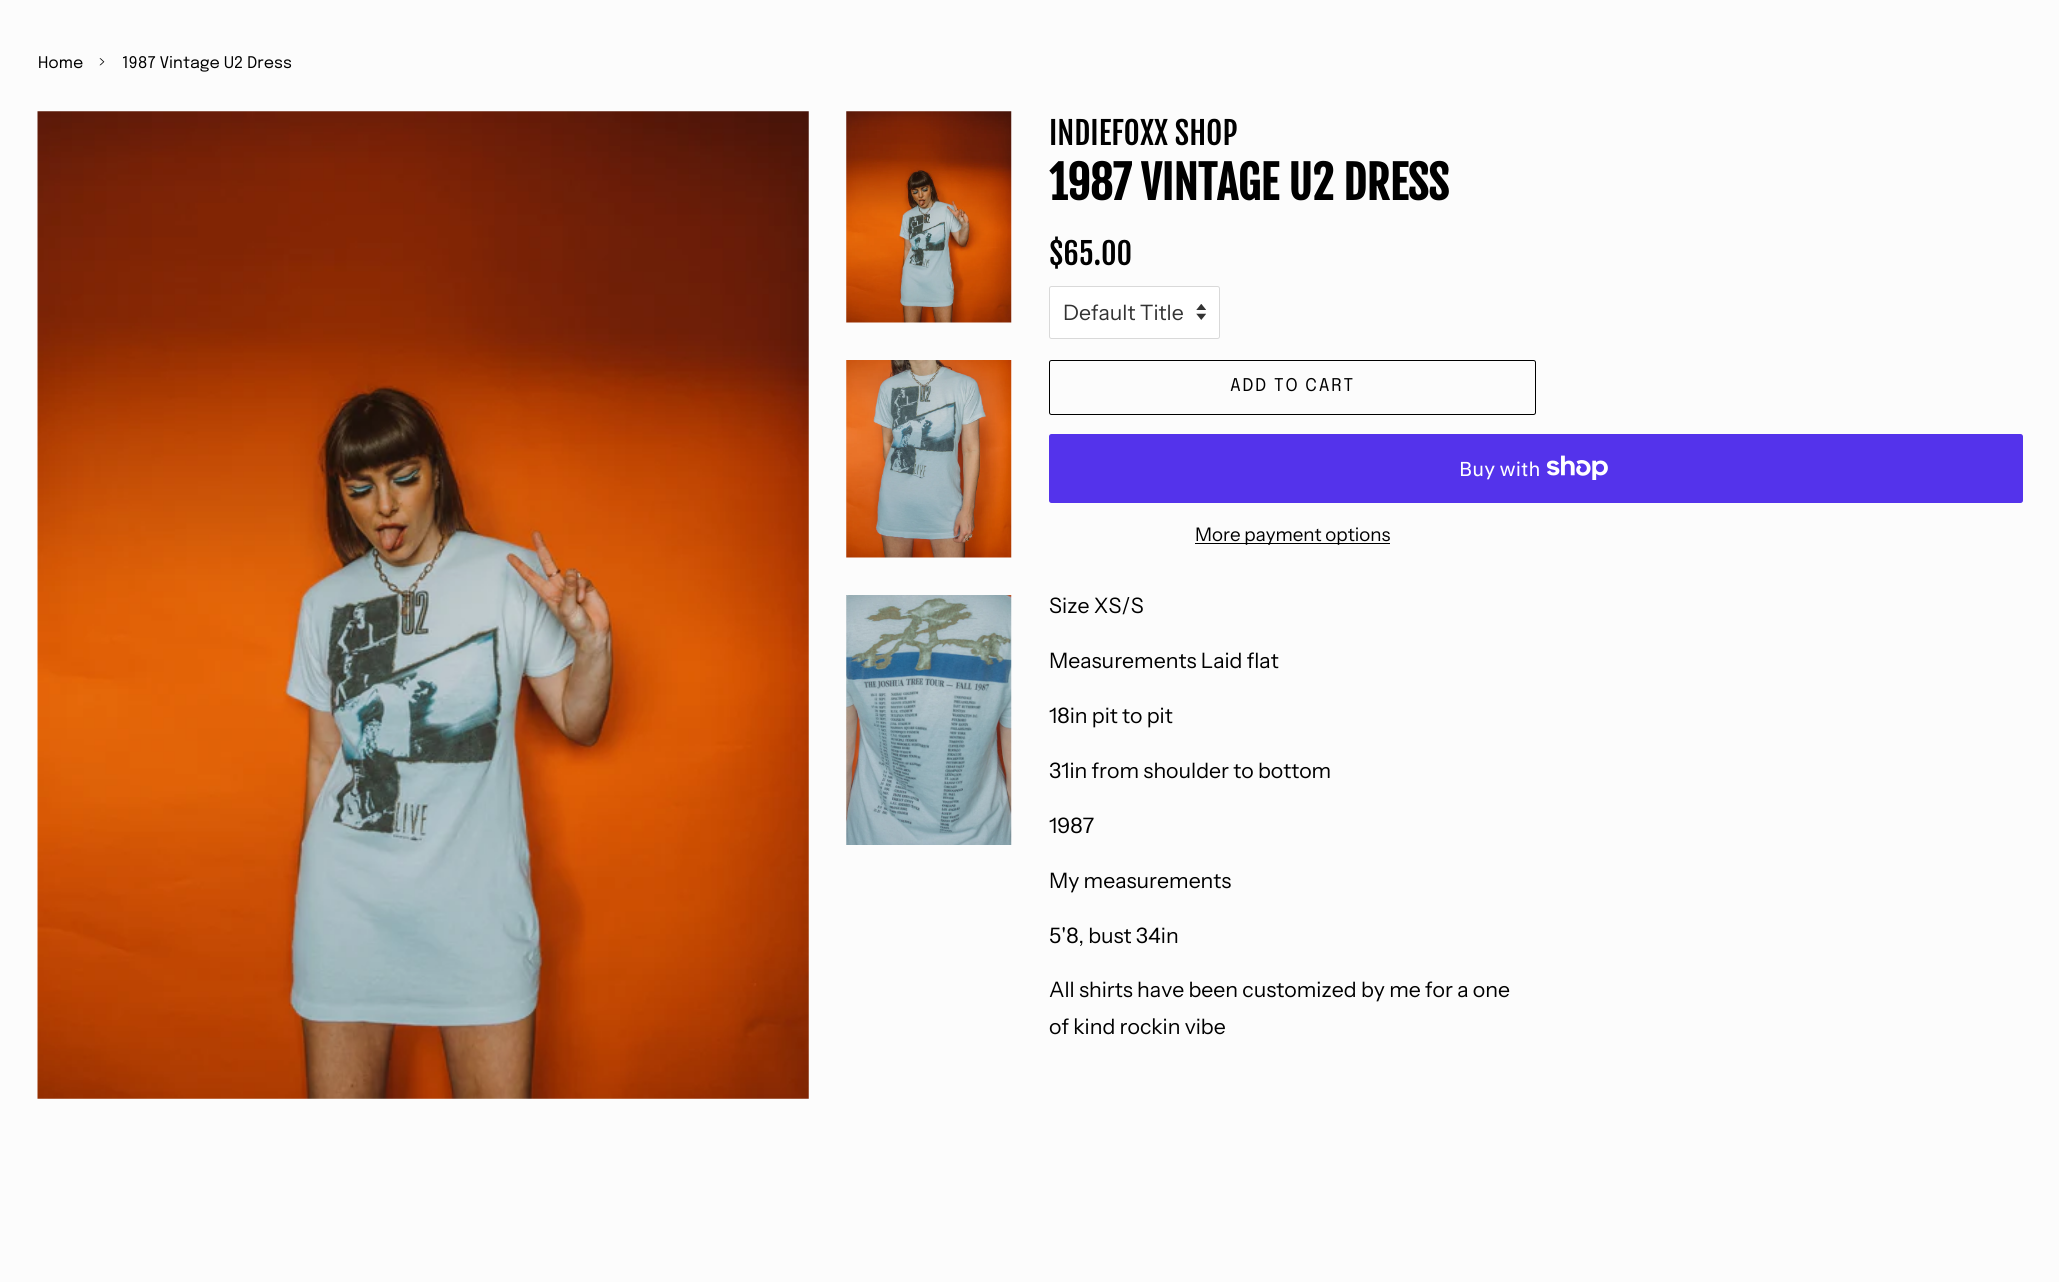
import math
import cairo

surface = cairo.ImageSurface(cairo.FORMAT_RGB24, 2059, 1282)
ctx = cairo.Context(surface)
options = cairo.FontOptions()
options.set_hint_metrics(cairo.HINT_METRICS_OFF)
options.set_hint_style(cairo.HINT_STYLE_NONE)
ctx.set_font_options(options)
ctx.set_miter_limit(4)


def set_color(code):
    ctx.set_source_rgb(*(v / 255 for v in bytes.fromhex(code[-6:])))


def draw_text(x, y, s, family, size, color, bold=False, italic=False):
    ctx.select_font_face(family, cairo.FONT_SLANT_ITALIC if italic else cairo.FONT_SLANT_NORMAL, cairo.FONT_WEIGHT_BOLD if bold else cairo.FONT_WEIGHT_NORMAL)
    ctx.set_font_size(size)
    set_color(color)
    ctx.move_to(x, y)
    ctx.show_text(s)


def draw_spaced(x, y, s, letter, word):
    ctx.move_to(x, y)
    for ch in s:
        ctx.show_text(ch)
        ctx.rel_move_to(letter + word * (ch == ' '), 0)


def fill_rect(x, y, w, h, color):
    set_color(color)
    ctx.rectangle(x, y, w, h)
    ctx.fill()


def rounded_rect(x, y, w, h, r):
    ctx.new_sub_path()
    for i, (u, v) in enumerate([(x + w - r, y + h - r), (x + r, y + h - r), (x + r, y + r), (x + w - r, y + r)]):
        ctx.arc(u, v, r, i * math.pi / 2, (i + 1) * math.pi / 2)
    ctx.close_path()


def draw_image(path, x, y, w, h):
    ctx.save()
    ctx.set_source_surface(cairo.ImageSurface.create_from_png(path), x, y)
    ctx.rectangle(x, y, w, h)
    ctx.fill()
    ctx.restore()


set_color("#fcfcfc")
ctx.paint()
draw_text(38, 68, "Home", "Epilogue", 16, "#000000")
draw_text(99, 68, "›", "Epilogue", 22, "#000000")
draw_text(122, 68, "1987 Vintage U2 Dress", "Epilogue", 16, "#000000")
draw_image("assets/img1.png", 37, 111, 772, 988)
draw_image("assets/img2.png", 846, 111, 166, 212)
draw_image("assets/img3.png", 846, 360, 166, 198)
draw_image("assets/img4.png", 846, 595, 166, 250)
draw_text(1049, 145, "INDIEFOXX SHOP", "Fjalla One", 31.25, "#000000")
draw_text(1049, 200, "1987 VINTAGE U2 DRESS", "Fjalla One", 45, "#000000", bold=True)
draw_text(1049, 265, "$65.00", "Fjalla One", 30, "#000000")
set_color("#ffffff")
rounded_rect(1049, 286, 171, 53, 2.5)
ctx.fill()
draw_image("assets/img5.png", 1196, 304, 10, 16)
rounded_rect(1049.5, 286.5, 170, 52, 2)
set_color("#d9d9d9")
ctx.set_line_width(1)
ctx.stroke()
draw_text(1063, 320, "Default Title", "Instrument Sans", 21.25, "#333333")
rounded_rect(1049.5, 360.5, 486, 54, 2)
set_color("#000000")
ctx.stroke()
ctx.select_font_face("Epilogue")
ctx.set_font_size(17.5)
draw_spaced(1230, 391, "ADD TO CART", 1.75, 0)
set_color("#5433eb")
rounded_rect(1049, 434, 974, 69, 2.5)
ctx.fill()
draw_text(1459, 476, "Buy with", "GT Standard", 20, "#ffffff")
draw_image("assets/img6.png", 1546, 455, 62, 25)
fill_rect(1195, 543, 195, 1, "#000000")
draw_text(1195, 541, "More payment options", "Instrument Sans", 18.75, "#000000")
draw_text(1049, 613, "Size XS/S", "Instrument Sans", 21.25, "#000000")
draw_text(1049, 668, "Measurements Laid flat", "Instrument Sans", 21.25, "#000000")
draw_text(1049, 723, "18in pit to pit", "Instrument Sans", 21.25, "#000000")
draw_text(1049, 778, "31in from shoulder to bottom", "Instrument Sans", 21.25, "#000000")
draw_text(1049, 833, "1987", "Instrument Sans", 21.25, "#000000")
draw_text(1049, 888, "My measurements", "Instrument Sans", 21.25, "#000000")
draw_text(1049, 943, "5'8, bust 34in", "Instrument Sans", 21.25, "#000000")
draw_text(1049, 997, "All shirts have been customized by me for a one", "Instrument Sans", 21.25, "#000000")
draw_text(1049, 1034, "of kind rockin vibe", "Instrument Sans", 21.25, "#000000")
surface.write_to_png("output.png")
